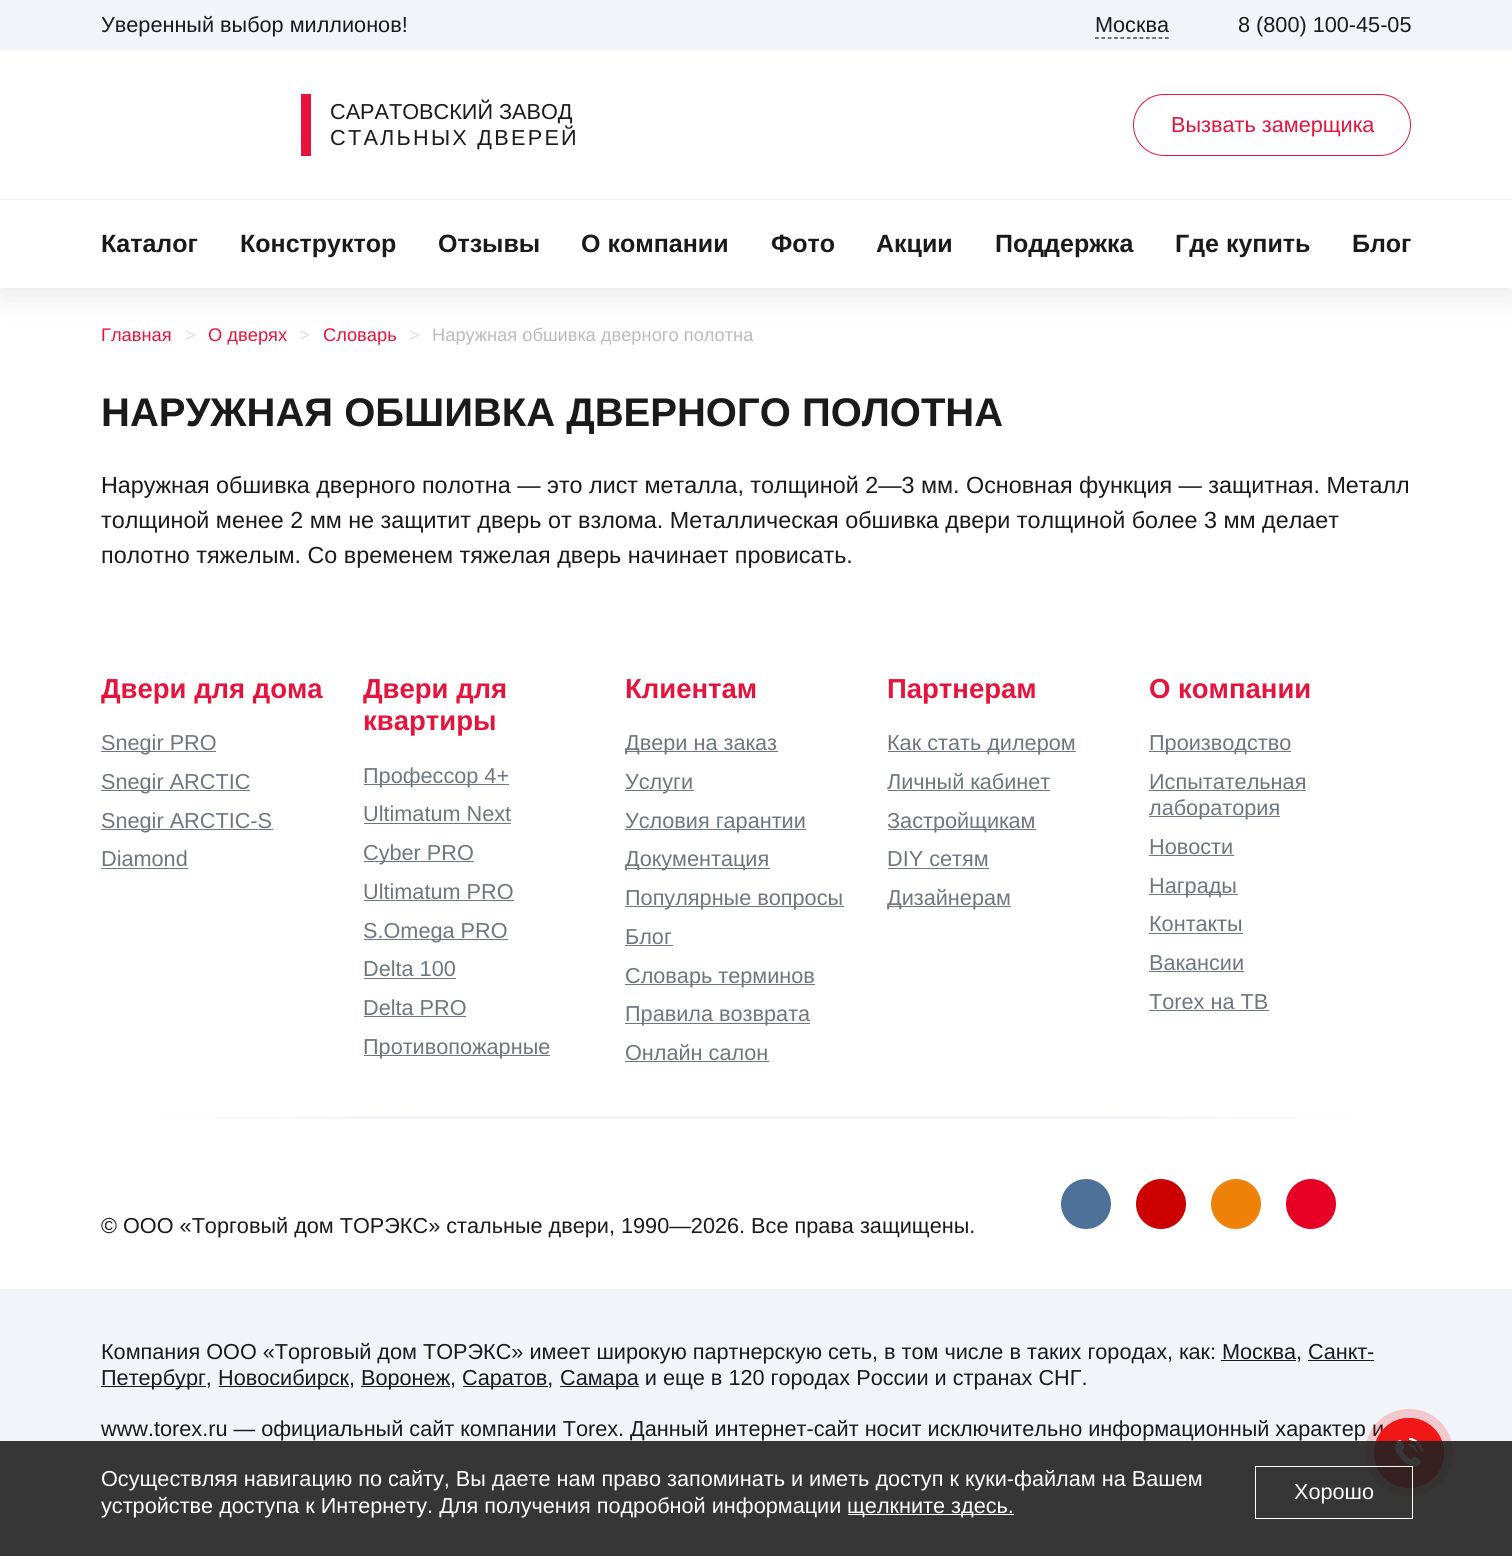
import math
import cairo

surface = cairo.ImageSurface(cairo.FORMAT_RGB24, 1512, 1556)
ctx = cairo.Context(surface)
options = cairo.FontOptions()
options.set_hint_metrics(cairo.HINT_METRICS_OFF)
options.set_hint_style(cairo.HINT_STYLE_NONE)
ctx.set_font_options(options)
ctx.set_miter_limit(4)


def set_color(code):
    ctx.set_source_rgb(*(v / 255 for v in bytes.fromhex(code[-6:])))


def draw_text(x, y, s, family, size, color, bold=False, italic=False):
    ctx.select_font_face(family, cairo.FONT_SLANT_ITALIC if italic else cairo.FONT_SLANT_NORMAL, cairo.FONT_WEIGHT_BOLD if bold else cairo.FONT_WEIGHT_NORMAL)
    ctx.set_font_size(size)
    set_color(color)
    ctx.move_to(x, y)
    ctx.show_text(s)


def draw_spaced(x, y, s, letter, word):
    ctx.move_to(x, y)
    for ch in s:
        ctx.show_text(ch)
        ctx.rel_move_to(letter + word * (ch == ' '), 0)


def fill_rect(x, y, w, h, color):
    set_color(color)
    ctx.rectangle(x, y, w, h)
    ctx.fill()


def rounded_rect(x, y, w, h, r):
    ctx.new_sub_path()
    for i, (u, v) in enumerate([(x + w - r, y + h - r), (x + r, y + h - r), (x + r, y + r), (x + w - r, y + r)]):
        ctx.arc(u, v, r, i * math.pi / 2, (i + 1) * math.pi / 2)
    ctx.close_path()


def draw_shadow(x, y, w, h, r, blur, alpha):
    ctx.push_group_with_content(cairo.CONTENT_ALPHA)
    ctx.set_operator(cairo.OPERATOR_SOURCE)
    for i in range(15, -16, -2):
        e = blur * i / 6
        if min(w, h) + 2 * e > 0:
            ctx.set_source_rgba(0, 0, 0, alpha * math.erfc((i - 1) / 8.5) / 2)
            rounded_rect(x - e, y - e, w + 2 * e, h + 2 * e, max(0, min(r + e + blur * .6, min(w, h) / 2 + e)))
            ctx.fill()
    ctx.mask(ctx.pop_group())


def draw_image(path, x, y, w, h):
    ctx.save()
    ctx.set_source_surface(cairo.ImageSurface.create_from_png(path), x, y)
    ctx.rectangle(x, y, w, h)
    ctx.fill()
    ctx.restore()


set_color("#ffffff")
ctx.paint()
ctx.save()
ctx.set_fill_rule(cairo.FILL_RULE_EVEN_ODD)
ctx.new_path()
ctx.move_to(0, 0)
ctx.line_to(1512, 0)
ctx.line_to(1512, 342)
ctx.line_to(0, 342)
ctx.close_path()
ctx.move_to(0, 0)
ctx.line_to(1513, 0)
ctx.line_to(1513, 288)
ctx.line_to(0, 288)
ctx.close_path()
ctx.clip()
set_color("#000000")
draw_shadow(0, 6, 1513, 288, 0, 15.5, 0.1)
ctx.restore()
fill_rect(0, 0, 1512, 50, "#f1f5f9")
draw_text(101, 32, "Уверенный выбор миллионов!", "Liberation Sans", 21.67, "#1a1a1a")
draw_text(1095, 32, "Москва", "Liberation Sans", 21.67, "#1a1a1a")
ctx.new_path()
ctx.move_to(1095, 38)
ctx.line_to(1169, 38)
ctx.set_line_width(1.2)
ctx.set_dash([3.75, 2.61])
ctx.stroke()
draw_text(1238, 32, "8 (800) 100-45-05", "Liberation Sans", 21.67, "#1a1a1a")
fill_rect(301, 94, 10, 62, "#e6143c")
draw_text(330, 119, "САРАТОВСКИЙ ЗАВОД", "Liberation Sans", 21.67, "#1a1a1a")
draw_spaced(330, 145, "СТАЛЬНЫХ ДВЕРЕЙ", 2.25, 0)
rounded_rect(1133.5, 94.5, 277, 61, 30.5)
set_color("#e6143c")
ctx.set_line_width(1)
ctx.set_dash([])
ctx.stroke()
draw_text(1171, 132, "Вызвать замерщика", "Liberation Sans", 21.67, "#e6143c")
set_color("#f2f2f2")
ctx.new_path()
ctx.move_to(0, 199)
ctx.line_to(0, 200)
ctx.line_to(1512, 200)
ctx.line_to(1512, 286)
ctx.line_to(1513, 286)
ctx.line_to(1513, 199)
ctx.close_path()
ctx.fill()
draw_text(101, 252, "Каталог", "Liberation Sans", 25, "#1a1a1a", bold=True)
draw_text(240, 252, "Конструктор", "Liberation Sans", 25, "#1a1a1a", bold=True)
draw_text(438, 252, "Отзывы", "Liberation Sans", 25, "#1a1a1a", bold=True)
draw_text(581, 252, "О компании", "Liberation Sans", 25, "#1a1a1a", bold=True)
draw_text(771, 252, "Фото", "Liberation Sans", 25, "#1a1a1a", bold=True)
draw_text(876, 252, "Акции", "Liberation Sans", 25, "#1a1a1a", bold=True)
draw_text(995, 252, "Поддержка", "Liberation Sans", 25, "#1a1a1a", bold=True)
draw_text(1175, 252, "Где купить", "Liberation Sans", 25, "#1a1a1a", bold=True)
draw_text(1352, 252, "Блог", "Liberation Sans", 25, "#1a1a1a", bold=True)
draw_text(101, 341, "Главная", "Liberation Sans", 18.3, "#e6143c")
draw_text(185, 341, ">", "Liberation Sans", 18.3, "#dddddd")
draw_text(208, 341, "О дверях", "Liberation Sans", 18.3, "#e6143c")
draw_text(299, 341, ">", "Liberation Sans", 18.3, "#dddddd")
draw_text(323, 341, "Словарь", "Liberation Sans", 18.3, "#e6143c")
draw_text(409, 341, ">", "Liberation Sans", 18.3, "#dddddd")
draw_text(432, 341, "Наружная обшивка дверного полотна", "Liberation Sans", 18.3, "#bbbbbb")
draw_text(101, 426, "НАРУЖНАЯ ОБШИВКА ДВЕРНОГО ПОЛОТНА", "Liberation Sans", 40, "#1a1a1a", bold=True)
draw_text(101, 493, "Наружная обшивка дверного полотна — это лист металла, толщиной 2—3 мм. Основная функция — защитная. Металл", "Liberation Sans", 23.33, "#1a1a1a")
draw_text(101, 528, "толщиной менее 2 мм не защитит дверь от взлома. Металлическая обшивка двери толщиной более 3 мм делает", "Liberation Sans", 23.33, "#1a1a1a")
draw_text(101, 563, "полотно тяжелым. Со временем тяжелая дверь начинает провисать.", "Liberation Sans", 23.33, "#1a1a1a")
draw_text(101, 698, "Двери для дома", "Liberation Sans", 27.5, "#e6143c", bold=True)
fill_rect(101, 751, 115, 1, "#6e7680")
draw_text(101, 750, "Snegir PRO", "Liberation Sans", 21.67, "#6e7680")
fill_rect(101, 790, 149, 1, "#6e7680")
draw_text(101, 789, "Snegir ARCTIC", "Liberation Sans", 21.67, "#6e7680")
fill_rect(101, 829, 172, 1, "#6e7680")
draw_text(101, 828, "Snegir ARCTIC-S", "Liberation Sans", 21.67, "#6e7680")
draw_text(101, 866, "Diamond", "Liberation Sans", 21.67, "#6e7680")
fill_rect(101, 868, 87, 1, "#6e7680")
draw_text(363, 698, "Двери для", "Liberation Sans", 27.5, "#e6143c", bold=True)
draw_text(363, 730, "квартиры", "Liberation Sans", 27.5, "#e6143c", bold=True)
fill_rect(364, 784, 145, 1, "#6e7680")
draw_text(363, 783, "Профессор 4+", "Liberation Sans", 21.67, "#6e7680")
draw_text(363, 821, "Ultimatum Next", "Liberation Sans", 21.67, "#6e7680")
fill_rect(364, 823, 147, 1, "#6e7680")
fill_rect(364, 861, 110, 1, "#6e7680")
draw_text(363, 860, "Cyber PRO", "Liberation Sans", 21.67, "#6e7680")
draw_text(363, 899, "Ultimatum PRO", "Liberation Sans", 21.67, "#6e7680")
fill_rect(364, 900, 150, 1, "#6e7680")
fill_rect(364, 939, 144, 1, "#6e7680")
draw_text(363, 938, "S.Omega PRO", "Liberation Sans", 21.67, "#6e7680")
draw_text(363, 976, "Delta 100", "Liberation Sans", 21.67, "#6e7680")
fill_rect(364, 978, 92, 1, "#6e7680")
draw_text(363, 1015, "Delta PRO", "Liberation Sans", 21.67, "#6e7680")
fill_rect(364, 1016, 102, 1, "#6e7680")
fill_rect(364, 1055, 186, 1, "#6e7680")
draw_text(363, 1054, "Противопожарные", "Liberation Sans", 21.67, "#6e7680")
draw_text(625, 698, "Клиентам", "Liberation Sans", 27.5, "#e6143c", bold=True)
fill_rect(625, 751, 153, 1, "#6e7680")
draw_text(625, 750, "Двери на заказ", "Liberation Sans", 21.67, "#6e7680")
fill_rect(625, 790, 69, 1, "#6e7680")
draw_text(625, 789, "Услуги", "Liberation Sans", 21.67, "#6e7680")
fill_rect(625, 829, 181, 1, "#6e7680")
draw_text(625, 828, "Условия гарантии", "Liberation Sans", 21.67, "#6e7680")
fill_rect(625, 868, 145, 1, "#6e7680")
draw_text(625, 866, "Документация", "Liberation Sans", 21.67, "#6e7680")
fill_rect(625, 906, 219, 1, "#6e7680")
draw_text(625, 905, "Популярные вопросы", "Liberation Sans", 21.67, "#6e7680")
draw_text(625, 944, "Блог", "Liberation Sans", 21.67, "#6e7680")
fill_rect(625, 945, 48, 1, "#6e7680")
fill_rect(625, 984, 190, 1, "#6e7680")
draw_text(625, 983, "Словарь терминов", "Liberation Sans", 21.67, "#6e7680")
fill_rect(625, 1023, 185, 1, "#6e7680")
draw_text(625, 1021, "Правила возврата", "Liberation Sans", 21.67, "#6e7680")
draw_text(625, 1060, "Онлайн салон", "Liberation Sans", 21.67, "#6e7680")
fill_rect(625, 1061, 144, 1, "#6e7680")
draw_text(887, 698, "Партнерам", "Liberation Sans", 27.5, "#e6143c", bold=True)
fill_rect(888, 751, 188, 1, "#6e7680")
draw_text(887, 750, "Как стать дилером", "Liberation Sans", 21.67, "#6e7680")
draw_text(887, 789, "Личный кабинет", "Liberation Sans", 21.67, "#6e7680")
fill_rect(888, 790, 162, 1, "#6e7680")
fill_rect(888, 829, 148, 1, "#6e7680")
draw_text(887, 828, "Застройщикам", "Liberation Sans", 21.67, "#6e7680")
draw_text(887, 866, "DIY сетям", "Liberation Sans", 21.67, "#6e7680")
fill_rect(888, 868, 101, 1, "#6e7680")
fill_rect(888, 906, 123, 1, "#6e7680")
draw_text(887, 905, "Дизайнерам", "Liberation Sans", 21.67, "#6e7680")
draw_text(1149, 698, "О компании", "Liberation Sans", 27.5, "#e6143c", bold=True)
fill_rect(1149, 751, 142, 1, "#6e7680")
draw_text(1149, 750, "Производство", "Liberation Sans", 21.67, "#6e7680")
draw_text(1149, 789, "Испытательная", "Liberation Sans", 21.67, "#6e7680")
fill_rect(1149, 790, 157, 1, "#6e7680")
fill_rect(1149, 816, 131, 1, "#6e7680")
draw_text(1149, 815, "лаборатория", "Liberation Sans", 21.67, "#6e7680")
draw_text(1149, 854, "Новости", "Liberation Sans", 21.67, "#6e7680")
fill_rect(1149, 855, 85, 1, "#6e7680")
fill_rect(1149, 894, 89, 1, "#6e7680")
draw_text(1149, 893, "Награды", "Liberation Sans", 21.67, "#6e7680")
draw_text(1149, 931, "Контакты", "Liberation Sans", 21.67, "#6e7680")
fill_rect(1149, 933, 94, 1, "#6e7680")
draw_text(1149, 970, "Вакансии", "Liberation Sans", 21.67, "#6e7680")
fill_rect(1149, 971, 95, 1, "#6e7680")
draw_text(1149, 1009, "Torex на ТВ", "Liberation Sans", 21.67, "#6e7680")
fill_rect(1149, 1010, 120, 1, "#6e7680")
gradient = cairo.LinearGradient(101, 1118, 1411, 1118)
gradient.add_color_stop_rgba(0, 1, 1, 1, 1)
gradient.add_color_stop_rgba(0.25, 0.945, 0.961, 0.976, 1)
gradient.add_color_stop_rgba(0.75, 0.945, 0.961, 0.976, 1)
gradient.add_color_stop_rgba(1, 1, 1, 1, 1)
ctx.set_source(gradient)
ctx.rectangle(159, 1116, 1194, 3)
ctx.fill()
draw_text(101, 1233, "© ООО «Торговый дом ТОРЭКС» стальные двери, 1990—2026. Все права защищены.", "Liberation Sans", 21.67, "#1a1a1a")
set_color("#4d7198")
ctx.new_path()
ctx.arc(1086, 1204, 25, 0, 2 * math.pi)
ctx.fill()
set_color("#cc0000")
ctx.arc(1161, 1204, 25, 0, 2 * math.pi)
ctx.fill()
set_color("#ee8208")
ctx.arc(1236, 1204, 25, 0, 2 * math.pi)
ctx.fill()
set_color("#e60023")
ctx.arc(1311, 1204, 25, 0, 2 * math.pi)
ctx.fill()
fill_rect(0, 1289, 1512, 267, "#f1f5f9")
draw_text(101, 1359, "Компания ООО «Торговый дом ТОРЭКС» имеет широкую партнерскую сеть, в том числе в таких городах, как:", "Liberation Sans", 21.67, "#1a1a1a")
fill_rect(1221, 1360, 75, 1, "#1a1a1a")
draw_text(1222, 1359, "Москва, Санкт-", "Liberation Sans", 21.67, "#1a1a1a")
fill_rect(101, 1386, 105, 1, "#1a1a1a")
draw_text(101, 1385, "Петербург,", "Liberation Sans", 21.67, "#1a1a1a")
fill_rect(1308, 1360, 66, 1, "#1a1a1a")
fill_rect(219, 1386, 130, 1, "#1a1a1a")
draw_text(218, 1385, "Новосибирск,", "Liberation Sans", 21.67, "#1a1a1a")
fill_rect(361, 1386, 89, 1, "#1a1a1a")
draw_text(361, 1385, "Воронеж,", "Liberation Sans", 21.67, "#1a1a1a")
fill_rect(463, 1386, 85, 1, "#1a1a1a")
draw_text(462, 1385, "Саратов,", "Liberation Sans", 21.67, "#1a1a1a")
fill_rect(560, 1386, 79, 1, "#1a1a1a")
draw_text(560, 1385, "Самара и еще в 120 городах России и странах СНГ.", "Liberation Sans", 21.67, "#1a1a1a")
draw_text(101, 1436, "www.torex.ru — официальный сайт компании Torex. Данный интернет-сайт носит исключительно информационный характер и", "Liberation Sans", 21.67, "#1a1a1a")
ctx.set_source_rgba(0.945, 0.09, 0.086, 0.2)
rounded_rect(1365, 1409, 88, 87, 43.5)
ctx.fill()
ctx.arc(1409, 1453, 34.5, 0, 2 * math.pi)
set_color("#f11716")
ctx.stroke()
ctx.arc(1409, 1453, 35, 0, 2 * math.pi)
ctx.fill()
draw_image("assets/img1.png", 1394, 1438, 29, 29)
ctx.set_source_rgba(0.133, 0.133, 0.133, 0.9)
ctx.rectangle(0, 1441, 1512, 115)
ctx.fill()
draw_text(101, 1486, "Осуществляя навигацию по сайту, Вы даете нам право запоминать и иметь доступ к куки-файлам на Вашем", "Liberation Sans", 21.67, "#ffffff")
draw_text(101, 1513, "устройстве доступа к Интернету. Для получения подробной информации", "Liberation Sans", 21.67, "#ffffff")
fill_rect(848, 1514, 166, 1, "#ffffff")
draw_text(847, 1513, "щелкните здесь.", "Liberation Sans", 21.67, "#ffffff")
ctx.rectangle(1255.5, 1466.5, 157, 52)
ctx.stroke()
draw_text(1294, 1499, "Хорошо", "Liberation Sans", 21.67, "#ffffff")
surface.write_to_png("output.png")
